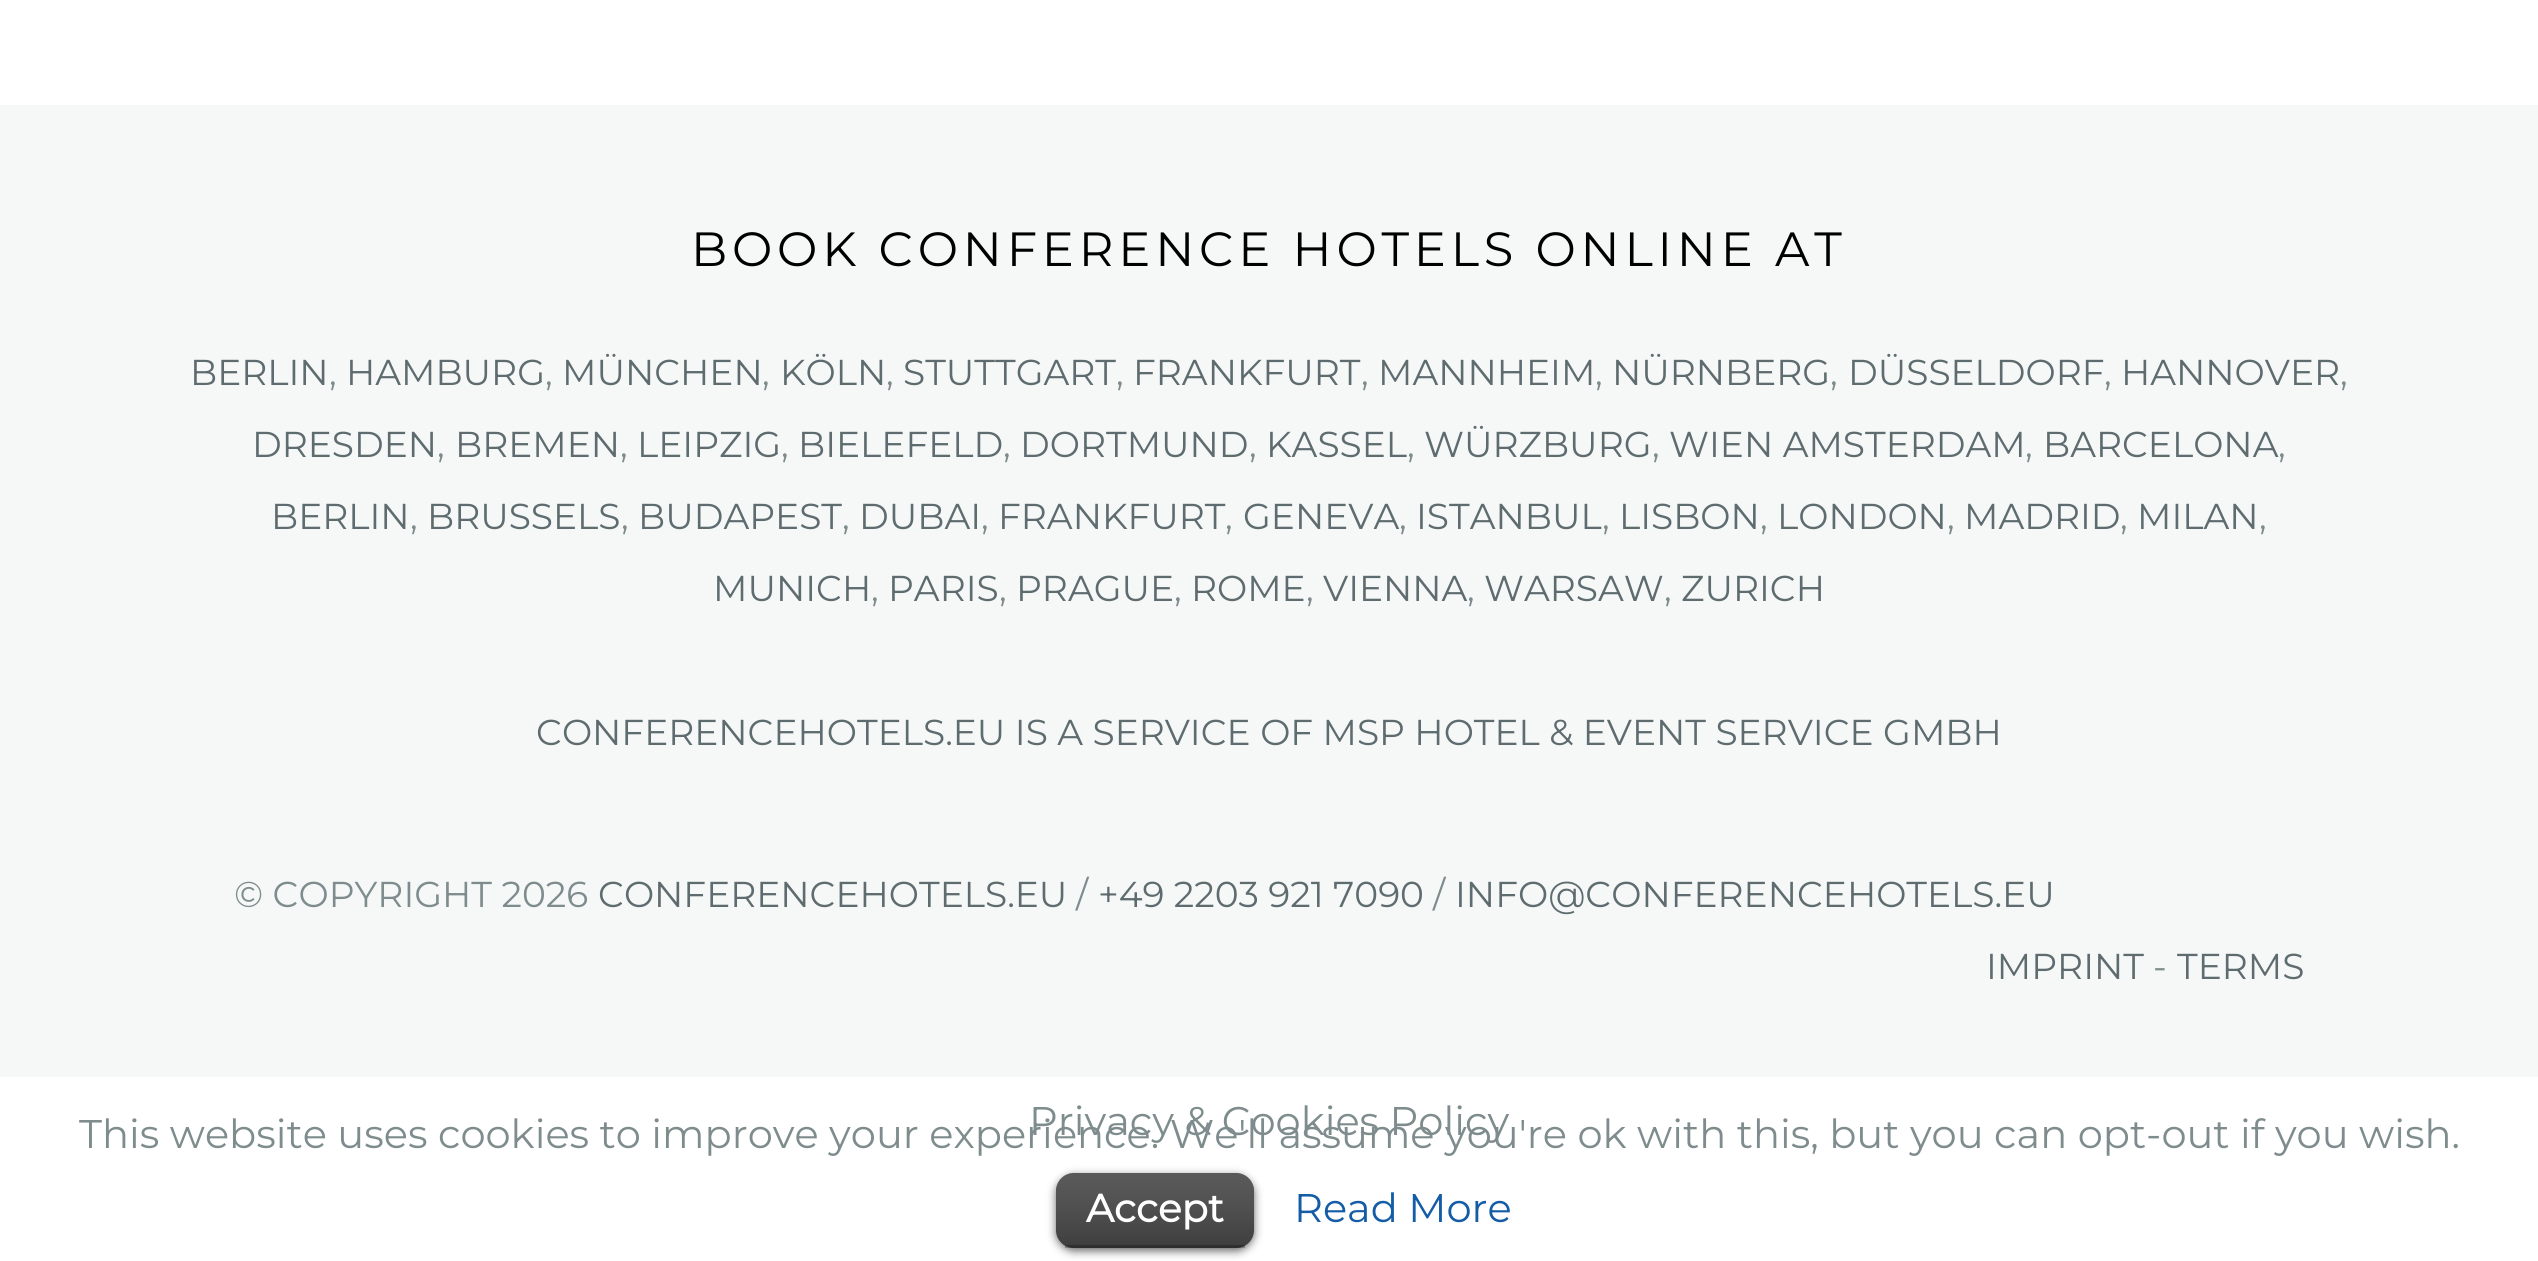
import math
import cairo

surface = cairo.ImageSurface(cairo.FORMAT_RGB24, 2538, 1261)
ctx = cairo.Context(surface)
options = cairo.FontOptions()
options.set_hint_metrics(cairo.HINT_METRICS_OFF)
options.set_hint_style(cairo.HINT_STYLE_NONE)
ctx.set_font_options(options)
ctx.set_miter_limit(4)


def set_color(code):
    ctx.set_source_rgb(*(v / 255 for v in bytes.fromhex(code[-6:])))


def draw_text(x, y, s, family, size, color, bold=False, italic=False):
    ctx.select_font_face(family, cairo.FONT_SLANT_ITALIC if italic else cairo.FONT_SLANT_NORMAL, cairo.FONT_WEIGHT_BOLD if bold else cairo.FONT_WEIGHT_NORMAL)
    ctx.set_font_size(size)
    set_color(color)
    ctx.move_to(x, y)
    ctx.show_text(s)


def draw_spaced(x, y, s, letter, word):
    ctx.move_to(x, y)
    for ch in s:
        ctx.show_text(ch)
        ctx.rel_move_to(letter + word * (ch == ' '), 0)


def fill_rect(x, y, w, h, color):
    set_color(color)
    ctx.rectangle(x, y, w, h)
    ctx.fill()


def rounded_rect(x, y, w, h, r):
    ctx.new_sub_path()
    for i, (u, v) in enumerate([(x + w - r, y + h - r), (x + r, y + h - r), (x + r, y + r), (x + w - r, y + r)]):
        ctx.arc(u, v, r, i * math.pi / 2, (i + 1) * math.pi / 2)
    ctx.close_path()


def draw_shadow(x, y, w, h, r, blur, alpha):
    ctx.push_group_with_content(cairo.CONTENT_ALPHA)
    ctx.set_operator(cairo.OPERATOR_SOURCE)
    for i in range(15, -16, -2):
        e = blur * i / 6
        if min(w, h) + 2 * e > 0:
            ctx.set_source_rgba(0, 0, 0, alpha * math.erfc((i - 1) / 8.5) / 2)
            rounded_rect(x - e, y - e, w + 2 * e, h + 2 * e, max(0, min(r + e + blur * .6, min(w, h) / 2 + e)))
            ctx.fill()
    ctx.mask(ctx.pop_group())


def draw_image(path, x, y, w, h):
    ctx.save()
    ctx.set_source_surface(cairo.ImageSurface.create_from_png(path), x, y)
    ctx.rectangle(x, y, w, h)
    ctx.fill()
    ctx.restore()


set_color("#ffffff")
ctx.paint()
fill_rect(0, 105, 2538, 972, "#f6f8f8")
ctx.select_font_face("Montserrat Thin")
ctx.set_font_size(48)
set_color("#000000")
draw_spaced(691, 266, "BOOK CONFERENCE HOTELS ONLINE AT", 4.8, 0)
draw_text(190, 385, "BERLIN", "Montserrat Thin", 36, "#5f6c6f")
draw_text(329, 385, ",", "Montserrat Thin", 36, "#7f8c8d")
draw_text(346, 385, "HAMBURG", "Montserrat Thin", 36, "#5f6c6f")
draw_text(545, 385, ",", "Montserrat Thin", 36, "#7f8c8d")
draw_text(562, 385, "MÜNCHEN", "Montserrat Thin", 36, "#5f6c6f")
draw_text(762, 385, ",", "Montserrat Thin", 36, "#7f8c8d")
draw_text(780, 385, "KÖLN", "Montserrat Thin", 36, "#5f6c6f")
draw_text(886, 385, ",", "Montserrat Thin", 36, "#7f8c8d")
draw_text(903, 385, "STUTTGART", "Montserrat Thin", 36, "#5f6c6f")
draw_text(1116, 385, ",", "Montserrat Thin", 36, "#7f8c8d")
draw_text(1133, 385, "FRANKFURT", "Montserrat Thin", 36, "#5f6c6f")
draw_text(1361, 385, ",", "Montserrat Thin", 36, "#7f8c8d")
draw_text(1378, 385, "MANNHEIM", "Montserrat Thin", 36, "#5f6c6f")
draw_text(1595, 385, ",", "Montserrat Thin", 36, "#7f8c8d")
draw_text(1612, 385, "NÜRNBERG", "Montserrat Thin", 36, "#5f6c6f")
draw_text(1830, 385, ",", "Montserrat Thin", 36, "#7f8c8d")
draw_text(1848, 385, "DÜSSELDORF", "Montserrat Thin", 36, "#5f6c6f")
draw_text(2104, 385, ",", "Montserrat Thin", 36, "#7f8c8d")
draw_text(2121, 385, "HANNOVER", "Montserrat Thin", 36, "#5f6c6f")
draw_text(2340, 385, ",", "Montserrat Thin", 36, "#7f8c8d")
draw_text(252, 457, "DRESDEN", "Montserrat Thin", 36, "#5f6c6f")
draw_text(437, 457, ",", "Montserrat Thin", 36, "#7f8c8d")
draw_text(455, 457, "BREMEN", "Montserrat Thin", 36, "#5f6c6f")
draw_text(620, 457, ",", "Montserrat Thin", 36, "#7f8c8d")
draw_text(637, 457, "LEIPZIG", "Montserrat Thin", 36, "#5f6c6f")
draw_text(781, 457, ",", "Montserrat Thin", 36, "#7f8c8d")
draw_text(798, 457, "BIELEFELD", "Montserrat Thin", 36, "#5f6c6f")
draw_text(1003, 457, ",", "Montserrat Thin", 36, "#7f8c8d")
draw_text(1020, 457, "DORTMUND", "Montserrat Thin", 36, "#5f6c6f")
draw_text(1249, 457, ",", "Montserrat Thin", 36, "#7f8c8d")
draw_text(1266, 457, "KASSEL", "Montserrat Thin", 36, "#5f6c6f")
draw_text(1407, 457, ",", "Montserrat Thin", 36, "#7f8c8d")
draw_text(1424, 457, "WÜRZBURG", "Montserrat Thin", 36, "#5f6c6f")
draw_text(1652, 457, ",", "Montserrat Thin", 36, "#7f8c8d")
draw_text(1669, 457, "WIEN AMSTERDAM", "Montserrat Thin", 36, "#5f6c6f")
draw_text(2025, 457, ",", "Montserrat Thin", 36, "#7f8c8d")
draw_text(2043, 457, "BARCELONA", "Montserrat Thin", 36, "#5f6c6f")
draw_text(2278, 457, ",", "Montserrat Thin", 36, "#7f8c8d")
draw_text(271, 529, "BERLIN", "Montserrat Thin", 36, "#5f6c6f")
draw_text(427, 529, "BRUSSELS", "Montserrat Thin", 36, "#5f6c6f")
draw_text(638, 529, "BUDAPEST", "Montserrat Thin", 36, "#5f6c6f")
draw_text(859, 529, "DUBAI", "Montserrat Thin", 36, "#5f6c6f")
draw_text(998, 529, "FRANKFURT", "Montserrat Thin", 36, "#5f6c6f")
draw_text(1243, 529, "GENEVA", "Montserrat Thin", 36, "#5f6c6f")
draw_text(1416, 529, "ISTANBUL", "Montserrat Thin", 36, "#5f6c6f")
draw_text(1619, 529, "LISBON", "Montserrat Thin", 36, "#5f6c6f")
draw_text(1777, 529, "LONDON", "Montserrat Thin", 36, "#5f6c6f")
draw_text(1964, 529, "MADRID", "Montserrat Thin", 36, "#5f6c6f")
draw_text(2137, 529, "MILAN", "Montserrat Thin", 36, "#5f6c6f")
draw_text(410, 529, ",", "Montserrat Thin", 36, "#7f8c8d")
draw_text(621, 529, ",", "Montserrat Thin", 36, "#7f8c8d")
draw_text(842, 529, ",", "Montserrat Thin", 36, "#7f8c8d")
draw_text(981, 529, ",", "Montserrat Thin", 36, "#7f8c8d")
draw_text(1225, 529, ",", "Montserrat Thin", 36, "#7f8c8d")
draw_text(1399, 529, ",", "Montserrat Thin", 36, "#7f8c8d")
draw_text(1602, 529, ",", "Montserrat Thin", 36, "#7f8c8d")
draw_text(1760, 529, ",", "Montserrat Thin", 36, "#7f8c8d")
draw_text(1947, 529, ",", "Montserrat Thin", 36, "#7f8c8d")
draw_text(2120, 529, ",", "Montserrat Thin", 36, "#7f8c8d")
draw_text(2259, 529, ",", "Montserrat Thin", 36, "#7f8c8d")
draw_text(713, 601, "MUNICH", "Montserrat Thin", 36, "#5f6c6f")
draw_text(871, 601, ",", "Montserrat Thin", 36, "#7f8c8d")
draw_text(888, 601, "PARIS", "Montserrat Thin", 36, "#5f6c6f")
draw_text(999, 601, ",", "Montserrat Thin", 36, "#7f8c8d")
draw_text(1016, 601, "PRAGUE", "Montserrat Thin", 36, "#5f6c6f")
draw_text(1174, 601, ",", "Montserrat Thin", 36, "#7f8c8d")
draw_text(1191, 601, "ROME", "Montserrat Thin", 36, "#5f6c6f")
draw_text(1306, 601, ",", "Montserrat Thin", 36, "#7f8c8d")
draw_text(1323, 601, "VIENNA", "Montserrat Thin", 36, "#5f6c6f")
draw_text(1467, 601, ",", "Montserrat Thin", 36, "#7f8c8d")
draw_text(1484, 601, "WARSAW", "Montserrat Thin", 36, "#5f6c6f")
draw_text(1664, 601, ",", "Montserrat Thin", 36, "#7f8c8d")
draw_text(1681, 601, "ZURICH", "Montserrat Thin", 36, "#5f6c6f")
draw_text(536, 745, "CONFERENCEHOTELS.EU IS A SERVICE OF MSP HOTEL & EVENT SERVICE GMBH", "Montserrat Thin", 36, "#5f6c6f")
draw_text(234, 907, "© COPYRIGHT 2026", "Montserrat Thin", 36, "#7f8c8d")
draw_text(598, 907, "CONFERENCEHOTELS.EU", "Montserrat Thin", 36, "#5f6c6f")
draw_text(1076, 907, "/", "Montserrat Thin", 36, "#7f8c8d")
draw_text(1098, 907, "+49 2203 921 7090", "Montserrat Thin", 36, "#5f6c6f")
draw_text(1433, 907, "/", "Montserrat Thin", 36, "#7f8c8d")
draw_text(1455, 907, "INFO@CONFERENCEHOTELS.EU", "Montserrat Thin", 36, "#5f6c6f")
draw_text(1986, 979, "IMPRINT", "Montserrat Thin", 36, "#5f6c6f")
draw_text(2153, 979, "-", "Montserrat Thin", 36, "#7f8c8d")
draw_text(2177, 979, "TERMS", "Montserrat Thin", 36, "#5f6c6f")
draw_text(1029, 1135, "Privacy & Cookies Policy", "Montserrat Thin", 40, "#7f8c8d")
draw_text(79, 1148, "This website uses cookies to improve your experience. We'll assume you're ok with this, but you can opt-out if you wish.", "Montserrat Thin", 40, "#7f8c8d")
set_color("#000000")
draw_shadow(1056, 1176, 198, 75, 18, 4.5, 0.6)
set_color("#222222")
rounded_rect(1056, 1173, 198, 75, 18)
ctx.fill()
draw_image("assets/img1.png", 1056, 1173, 198, 75)
ctx.set_source_rgba(0, 0, 0, 0.25)
ctx.rectangle(1065, 1245, 180, 3)
ctx.fill()
draw_text(1086, 1222, "Accept", "Montserrat", 39, "#ffffff", bold=True)
draw_text(1294, 1222, "Read More", "Montserrat Thin", 40, "#145ca6")
surface.write_to_png("output.png")
